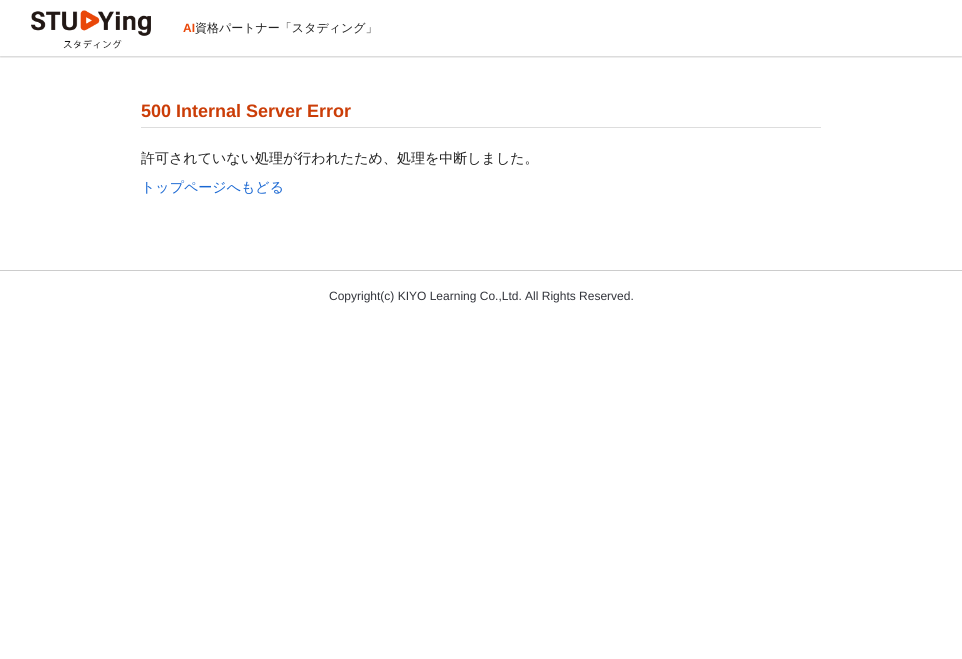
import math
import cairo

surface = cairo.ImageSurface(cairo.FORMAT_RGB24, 962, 659)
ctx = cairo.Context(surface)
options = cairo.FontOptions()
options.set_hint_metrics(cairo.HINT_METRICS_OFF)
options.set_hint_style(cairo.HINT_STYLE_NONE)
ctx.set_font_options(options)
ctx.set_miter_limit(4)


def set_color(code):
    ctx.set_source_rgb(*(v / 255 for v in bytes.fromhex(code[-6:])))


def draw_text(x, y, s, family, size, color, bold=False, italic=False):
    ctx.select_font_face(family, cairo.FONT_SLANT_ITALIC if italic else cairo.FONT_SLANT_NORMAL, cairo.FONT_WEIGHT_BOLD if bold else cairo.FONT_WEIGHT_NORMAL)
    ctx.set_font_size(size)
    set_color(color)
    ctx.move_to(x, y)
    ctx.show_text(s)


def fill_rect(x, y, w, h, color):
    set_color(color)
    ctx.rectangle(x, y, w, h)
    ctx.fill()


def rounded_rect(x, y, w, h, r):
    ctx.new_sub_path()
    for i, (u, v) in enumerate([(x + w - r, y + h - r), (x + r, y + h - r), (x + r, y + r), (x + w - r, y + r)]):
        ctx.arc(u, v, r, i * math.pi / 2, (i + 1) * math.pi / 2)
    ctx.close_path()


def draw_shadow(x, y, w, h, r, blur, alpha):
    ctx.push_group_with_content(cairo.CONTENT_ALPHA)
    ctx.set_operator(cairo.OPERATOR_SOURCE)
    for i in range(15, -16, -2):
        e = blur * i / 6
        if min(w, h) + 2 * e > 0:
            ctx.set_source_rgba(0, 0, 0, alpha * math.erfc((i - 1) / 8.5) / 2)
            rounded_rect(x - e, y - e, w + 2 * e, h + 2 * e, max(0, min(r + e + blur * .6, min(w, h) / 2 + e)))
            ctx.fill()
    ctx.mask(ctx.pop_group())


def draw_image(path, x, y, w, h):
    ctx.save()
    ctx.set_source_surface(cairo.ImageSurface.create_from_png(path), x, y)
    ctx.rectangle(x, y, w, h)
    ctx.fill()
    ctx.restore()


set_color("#ffffff")
ctx.paint()
ctx.save()
ctx.rectangle(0, 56, 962, 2)
ctx.clip()
set_color("#000000")
draw_shadow(0, 1, 962, 56, 0, 1, 0.2)
ctx.restore()
draw_image("assets/img1.png", 31, 10, 120, 39)
draw_text(183, 32, "AI", "Liberation Sans", 12, "#e94709", bold=True)
draw_text(195, 32, "資格パートナー「スタディング」", "WenQuanYi Zen Hei Medium", 12, "#222222")
fill_rect(141, 127, 680, 1, "#dddddd")
draw_text(141, 117, "500 Internal Server Error", "Liberation Sans", 18, "#cb3d07", bold=True)
draw_text(141, 163, "許可されていない処理が行われたため、処理を中断しました。", "WenQuanYi Zen Hei Medium", 14, "#222222")
draw_text(141, 192, "トップページへもどる", "WenQuanYi Zen Hei Medium", 14, "#1967d2")
fill_rect(0, 270, 962, 1, "#cccccc")
draw_text(329, 300, "Copyright(c) KIYO Learning Co.,Ltd. All Rights Reserved.", "Liberation Sans", 12, "#31333a")
surface.write_to_png("output.png")
